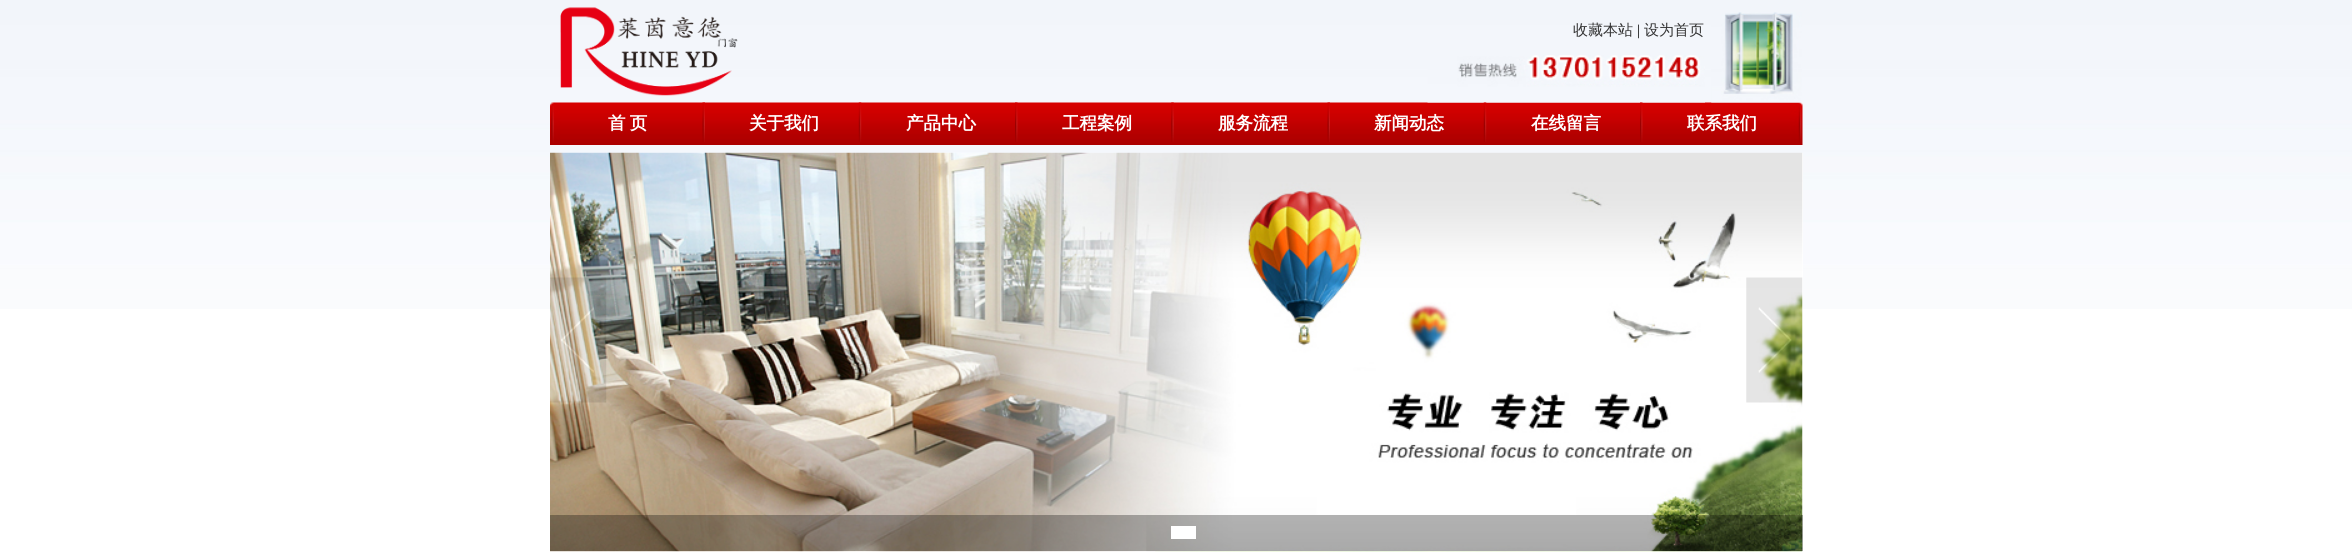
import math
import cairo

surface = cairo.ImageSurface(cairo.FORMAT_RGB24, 2352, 555)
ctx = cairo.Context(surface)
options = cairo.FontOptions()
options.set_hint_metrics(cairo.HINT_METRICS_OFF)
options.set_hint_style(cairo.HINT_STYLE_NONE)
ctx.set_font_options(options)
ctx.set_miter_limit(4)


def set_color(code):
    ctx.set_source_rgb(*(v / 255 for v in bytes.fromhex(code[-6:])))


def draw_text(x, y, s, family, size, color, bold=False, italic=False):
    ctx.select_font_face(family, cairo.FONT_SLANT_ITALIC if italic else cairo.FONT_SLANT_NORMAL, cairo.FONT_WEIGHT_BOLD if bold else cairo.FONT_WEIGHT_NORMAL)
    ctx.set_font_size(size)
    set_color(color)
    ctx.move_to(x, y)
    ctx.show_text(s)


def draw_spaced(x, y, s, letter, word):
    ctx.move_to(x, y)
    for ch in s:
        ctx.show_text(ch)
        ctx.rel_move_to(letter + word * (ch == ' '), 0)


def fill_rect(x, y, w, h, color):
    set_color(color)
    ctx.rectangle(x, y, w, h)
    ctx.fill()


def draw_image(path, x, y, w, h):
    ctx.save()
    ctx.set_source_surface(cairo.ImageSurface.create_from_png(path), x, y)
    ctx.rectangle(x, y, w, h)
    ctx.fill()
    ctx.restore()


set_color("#ffffff")
ctx.paint()
draw_image("assets/img1.png", 0, 0, 2352, 309)
draw_image("assets/img2.png", 560, 7, 178, 89)
draw_text(1573, 35, "收藏本站", "WenQuanYi Zen Hei Medium", 15, "#333333")
draw_text(1637, 35, "|", "Liberation Serif", 15, "#000000")
draw_text(1644, 35, "设为首页", "WenQuanYi Zen Hei Medium", 15, "#333333")
draw_image("assets/img5.png", 550, 102, 1253, 43)
draw_image("assets/img3.png", 1711, 12, 91, 91)
draw_image("assets/img4.png", 1427, 55, 278, 48)
draw_image("assets/img6.png", 702, 102, 3, 40)
ctx.select_font_face("WenQuanYi Zen Hei", cairo.FONT_SLANT_NORMAL, cairo.FONT_WEIGHT_BOLD)
ctx.set_font_size(17.5)
set_color("#ffffff")
draw_spaced(608, 129, "首 页", 0, -1)
draw_image("assets/img7.png", 858, 102, 4, 40)
draw_text(749, 129, "关于我们", "WenQuanYi Zen Hei", 17.5, "#ffffff", bold=True)
draw_image("assets/img8.png", 1015, 102, 3, 40)
draw_text(906, 129, "产品中心", "WenQuanYi Zen Hei", 17.5, "#ffffff", bold=True)
draw_image("assets/img9.png", 1171, 102, 3, 40)
draw_text(1062, 129, "工程案例", "WenQuanYi Zen Hei", 17.5, "#ffffff", bold=True)
draw_image("assets/img6.png", 1327, 102, 3, 40)
draw_text(1218, 129, "服务流程", "WenQuanYi Zen Hei", 17.5, "#ffffff", bold=True)
draw_image("assets/img10.png", 1483, 102, 4, 40)
draw_text(1374, 129, "新闻动态", "WenQuanYi Zen Hei", 17.5, "#ffffff", bold=True)
draw_image("assets/img11.png", 1640, 102, 3, 40)
draw_text(1531, 129, "在线留言", "WenQuanYi Zen Hei", 17.5, "#ffffff", bold=True)
draw_text(1687, 129, "联系我们", "WenQuanYi Zen Hei", 17.5, "#ffffff", bold=True)
fill_rect(1802, 153, 1, 156, "#ffffff")
draw_image("assets/img12.png", 550, 152, 1253, 400)
draw_image("assets/img13.png", 550, 277, 57, 126)
draw_image("assets/img14.png", 1746, 277, 57, 126)
ctx.set_source_rgba(0, 0, 0, 0.3)
ctx.rectangle(550, 515, 1253, 36)
ctx.fill()
fill_rect(1171, 526, 25, 13, "#ffffff")
surface.write_to_png("output.png")
